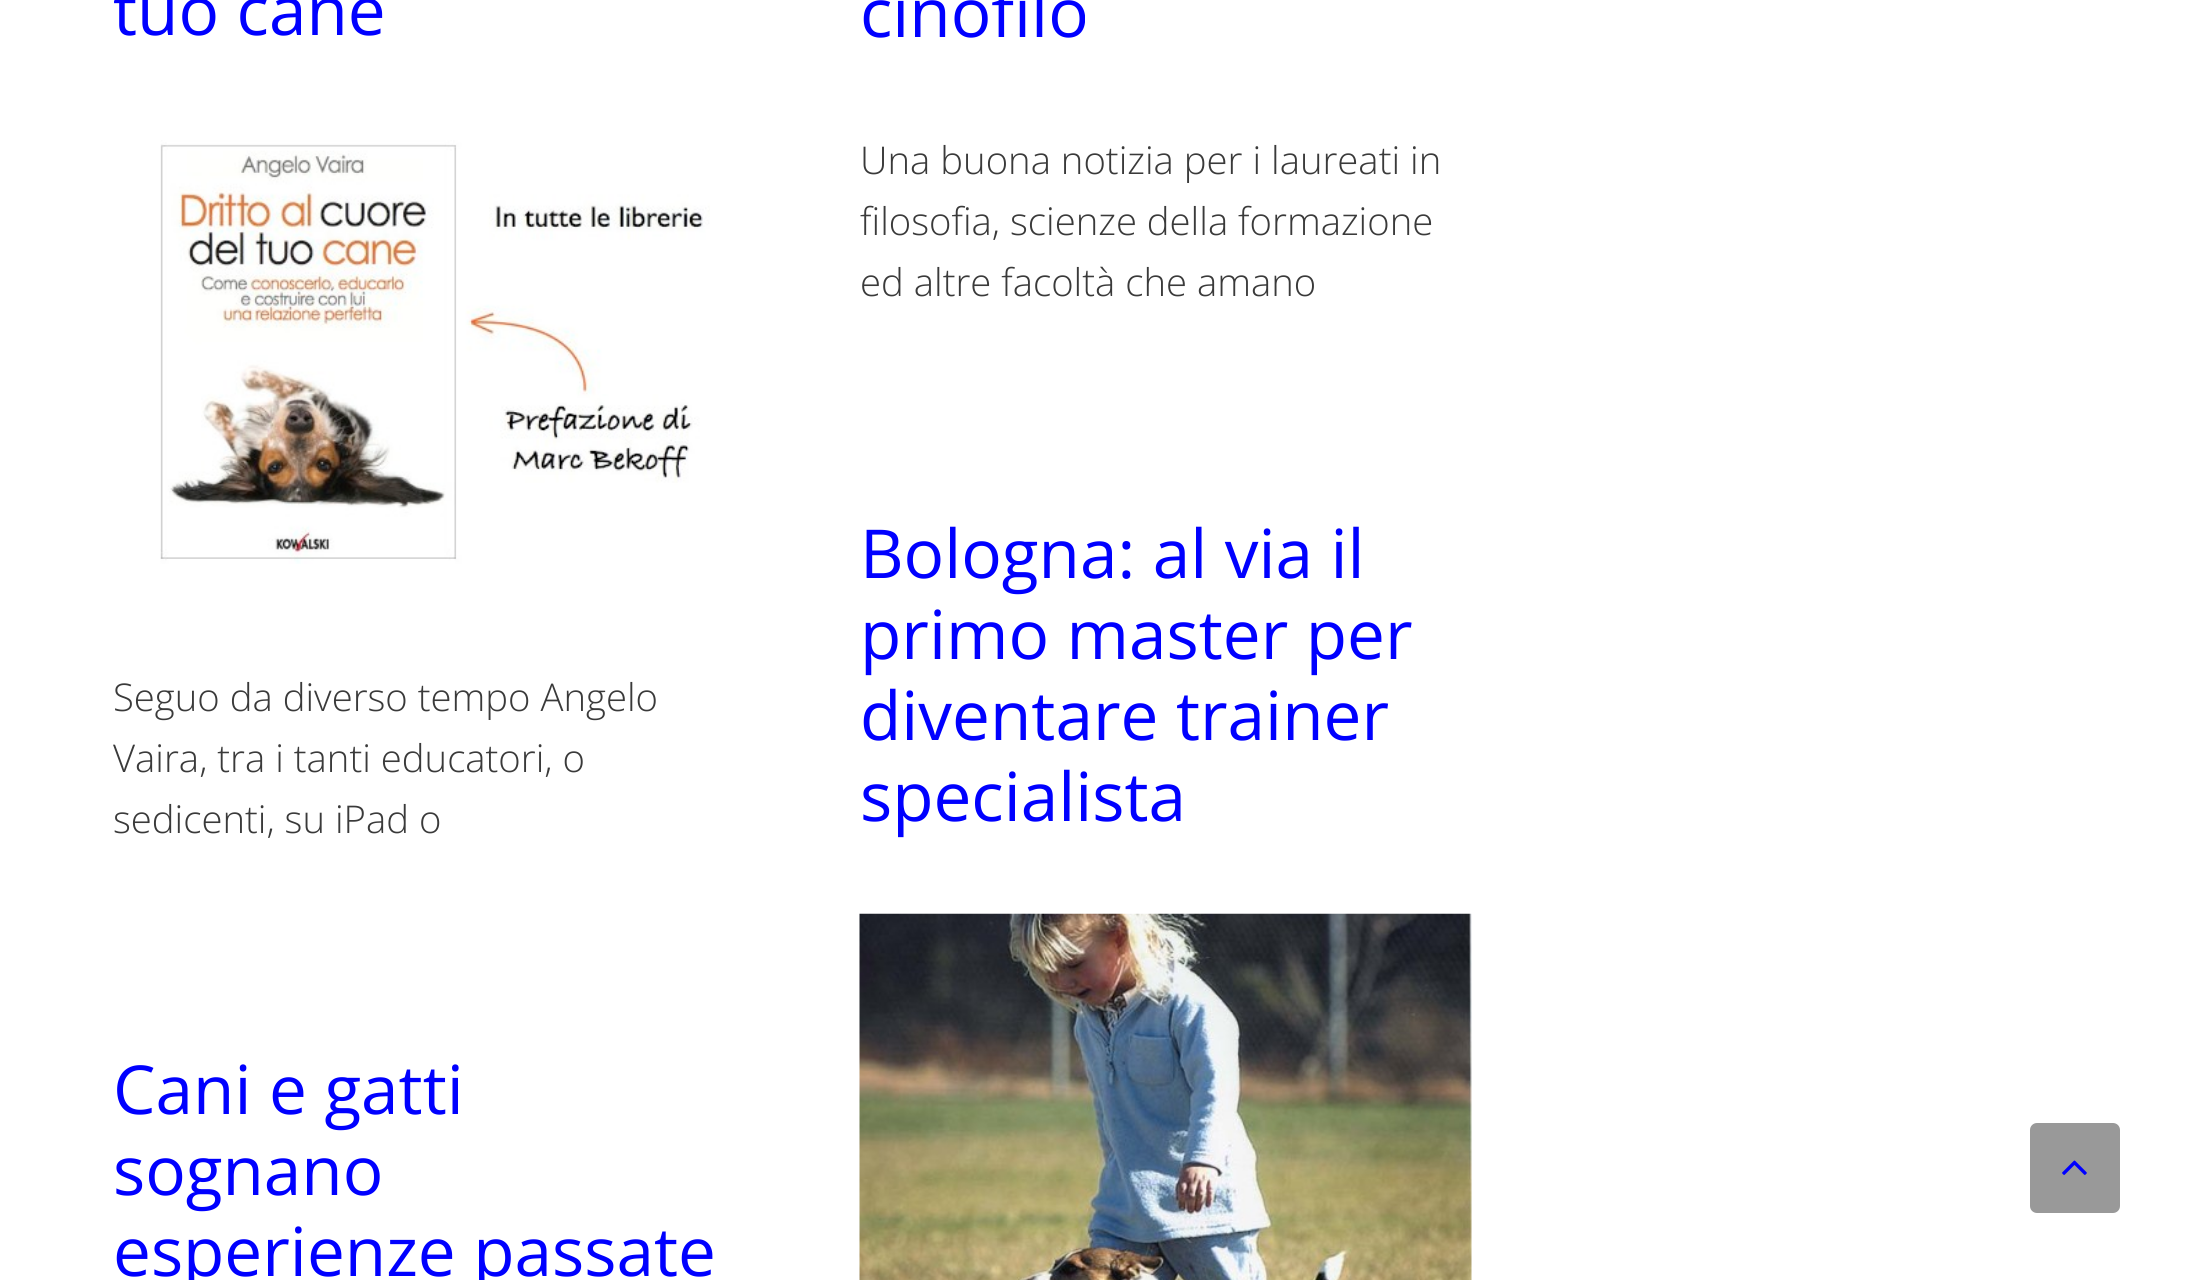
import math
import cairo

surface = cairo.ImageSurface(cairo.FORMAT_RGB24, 2186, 1280)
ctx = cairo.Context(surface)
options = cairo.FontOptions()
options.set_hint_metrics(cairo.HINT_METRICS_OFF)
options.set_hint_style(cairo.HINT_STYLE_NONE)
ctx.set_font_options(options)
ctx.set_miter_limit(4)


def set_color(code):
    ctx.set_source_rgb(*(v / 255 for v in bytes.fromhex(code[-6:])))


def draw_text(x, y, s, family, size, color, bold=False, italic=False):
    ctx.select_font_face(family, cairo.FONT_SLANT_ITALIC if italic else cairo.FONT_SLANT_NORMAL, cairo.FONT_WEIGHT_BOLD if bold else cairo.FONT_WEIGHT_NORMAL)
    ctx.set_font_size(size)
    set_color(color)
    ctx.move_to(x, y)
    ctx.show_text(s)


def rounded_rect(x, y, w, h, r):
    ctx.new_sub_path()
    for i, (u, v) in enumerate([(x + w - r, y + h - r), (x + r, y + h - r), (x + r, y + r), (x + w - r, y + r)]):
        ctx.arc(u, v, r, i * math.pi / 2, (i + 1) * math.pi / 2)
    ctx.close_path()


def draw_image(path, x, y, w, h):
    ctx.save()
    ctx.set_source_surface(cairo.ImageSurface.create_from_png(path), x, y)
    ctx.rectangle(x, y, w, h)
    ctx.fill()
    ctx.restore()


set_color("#ffffff")
ctx.paint()
draw_text(113, 35, "tuo cane", "Open Sans", 67.5, "#0000ff")
draw_image("assets/img1.png", 160, 140, 550, 424)
draw_text(113, 711, "Seguo da diverso tempo Angelo", "Open Sans Light", 38.25, "#3a3a3a")
draw_text(113, 772, "Vaira, tra i tanti educatori, o", "Open Sans Light", 38.25, "#3a3a3a")
draw_text(113, 833, "sedicenti, su iPad o", "Open Sans Light", 38.25, "#3a3a3a")
draw_text(860, 37, "cinofilo", "Open Sans", 67.5, "#0000ff")
draw_text(860, 174, "Una buona notizia per i laureati in", "Open Sans Light", 38.25, "#3a3a3a")
draw_text(860, 235, "filosofia, scienze della formazione", "Open Sans Light", 38.25, "#3a3a3a")
draw_text(860, 296, "ed altre facoltà che amano", "Open Sans Light", 38.25, "#3a3a3a")
draw_text(860, 578, "Bologna: al via il", "Open Sans", 67.5, "#0000ff")
draw_text(860, 659, "primo master per", "Open Sans", 67.5, "#0000ff")
draw_text(860, 740, "diventare trainer", "Open Sans", 67.5, "#0000ff")
draw_text(860, 821, "specialista", "Open Sans", 67.5, "#0000ff")
draw_image("assets/img2.png", 859, 913, 613, 367)
draw_text(113, 1114, "Cani e gatti", "Open Sans", 67.5, "#0000ff")
draw_text(113, 1195, "sognano", "Open Sans", 67.5, "#0000ff")
draw_text(113, 1276, "esperienze passate", "Open Sans", 67.5, "#0000ff")
set_color("#999999")
rounded_rect(2030, 1123, 90, 90, 7)
ctx.fill()
draw_image("assets/img3.png", 2062, 1160, 25, 15)
surface.write_to_png("output.png")
